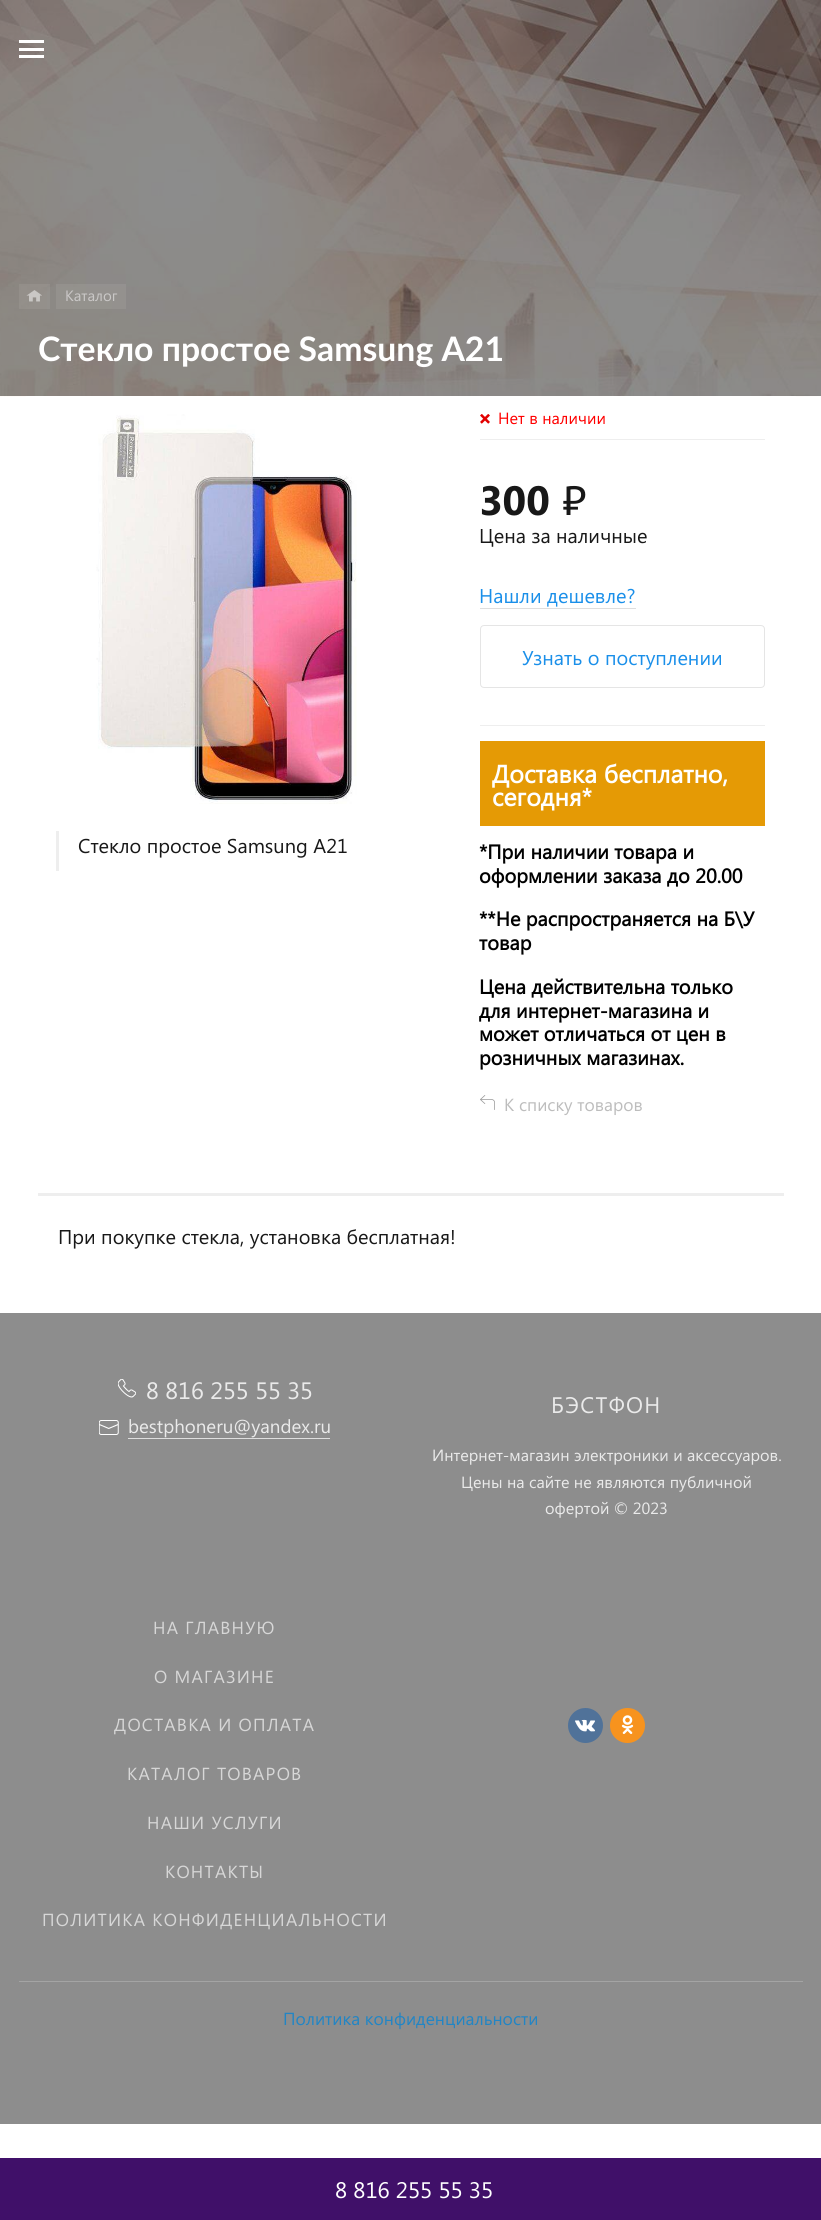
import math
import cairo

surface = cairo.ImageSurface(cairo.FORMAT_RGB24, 821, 2220)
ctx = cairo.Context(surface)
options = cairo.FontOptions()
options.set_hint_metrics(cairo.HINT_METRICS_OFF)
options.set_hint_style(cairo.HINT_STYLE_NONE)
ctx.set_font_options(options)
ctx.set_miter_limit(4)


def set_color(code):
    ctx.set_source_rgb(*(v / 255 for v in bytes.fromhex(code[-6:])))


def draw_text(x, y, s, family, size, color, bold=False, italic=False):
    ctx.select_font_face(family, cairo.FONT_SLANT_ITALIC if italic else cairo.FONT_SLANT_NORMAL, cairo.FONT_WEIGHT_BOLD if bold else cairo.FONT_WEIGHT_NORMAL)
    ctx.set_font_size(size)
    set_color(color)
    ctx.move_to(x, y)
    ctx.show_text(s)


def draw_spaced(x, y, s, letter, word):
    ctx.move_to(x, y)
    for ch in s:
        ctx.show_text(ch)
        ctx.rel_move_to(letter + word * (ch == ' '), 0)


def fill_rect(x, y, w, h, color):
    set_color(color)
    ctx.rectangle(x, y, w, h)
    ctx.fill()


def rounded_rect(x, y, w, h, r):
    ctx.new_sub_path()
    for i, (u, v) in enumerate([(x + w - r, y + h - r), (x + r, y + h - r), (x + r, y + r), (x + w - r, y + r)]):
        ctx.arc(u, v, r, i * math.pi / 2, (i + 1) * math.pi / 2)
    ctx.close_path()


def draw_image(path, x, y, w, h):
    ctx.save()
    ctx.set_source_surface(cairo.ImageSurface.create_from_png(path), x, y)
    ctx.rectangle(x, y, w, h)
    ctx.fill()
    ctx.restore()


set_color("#ffffff")
ctx.paint()
draw_image("assets/img1.png", 0, 0, 821, 397)
fill_rect(19, 40, 25, 3, "#ffffff")
fill_rect(19, 48, 25, 3, "#ffffff")
fill_rect(19, 55, 25, 3, "#ffffff")
ctx.set_source_rgba(1, 1, 1, 0.07)
ctx.rectangle(19, 284, 31, 25)
ctx.fill()
draw_image("assets/img2.png", 26, 290, 16, 12)
ctx.rectangle(56, 284, 70, 25)
ctx.fill()
draw_text(65, 301, "Каталог", "Segoe UI", 15, "#cac8c7")
draw_text(38, 361, "Стекло простое Samsung A21", "Lato", 33.75, "#ffffff", bold=True)
ctx.new_path()
ctx.move_to(29, 396)
ctx.line_to(793, 396)
ctx.curve_to(798.5, 396, 803, 400.5, 803, 406)
ctx.line_to(803, 1313)
ctx.line_to(19, 1313)
ctx.line_to(19, 406)
ctx.curve_to(19, 400.5, 23.5, 396, 29, 396)
ctx.close_path()
ctx.fill()
draw_image("assets/img3.png", 96, 414, 261, 390)
fill_rect(56, 831, 3, 40, "#eeeeee")
draw_text(78, 853, "Стекло простое Samsung A21", "Segoe UI", 20, "#181818")
draw_image("assets/img4.png", 480, 414, 10, 10)
draw_text(498, 424, "Нет в наличии", "Segoe UI", 16.25, "#ff0000")
fill_rect(480, 439, 285, 1, "#eeeeee")
draw_text(479, 515, "300", "Segoe UI", 41, "#181818", bold=True)
draw_text(562, 515, "₽", "PT Sans Caption", 41, "#181818")
draw_text(479, 543, "Цена за наличные", "Segoe UI", 20, "#181818")
draw_text(479, 603, "Нашли дешевле?", "Segoe UI", 20, "#1a8fe9")
fill_rect(480, 608, 156, 1, "#dedede")
rounded_rect(480.5, 625.5, 284, 62, 3.5)
set_color("#e5e5e5")
ctx.set_line_width(1)
ctx.stroke()
draw_text(522, 665, "Узнать о поступлении", "Segoe UI", 20, "#1a8fe9")
fill_rect(480, 725, 285, 1, "#eeeeee")
fill_rect(480, 741, 285, 85, "#e59a05")
draw_text(492, 783, "Доставка бесплатно,", "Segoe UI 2", 25, "#ffffff", bold=True)
draw_text(492, 806, "сегодня*", "Segoe UI 2", 25, "#ffffff", bold=True)
draw_text(479, 859, "*При наличии товара и", "Segoe UI 2", 20, "#000000", bold=True)
draw_text(479, 883, "оформлении заказа до 20.00", "Segoe UI 2", 20, "#000000", bold=True)
draw_text(479, 926, "**Не распространяется на Б\\У", "Segoe UI 2", 20, "#000000", bold=True)
draw_text(479, 950, "товар", "Segoe UI 2", 20, "#000000", bold=True)
draw_text(479, 994, "Цена действительна только", "Segoe UI 2", 20, "#000000", bold=True)
draw_text(479, 1018, "для интернет-магазина и", "Segoe UI 2", 20, "#000000", bold=True)
draw_text(479, 1041, "может отличаться от цен в", "Segoe UI 2", 20, "#000000", bold=True)
draw_text(479, 1065, "розничных магазинах.", "Segoe UI 2", 20, "#000000", bold=True)
draw_image("assets/img5.png", 480, 1095, 15, 15)
draw_text(504, 1111, "К списку товаров", "Segoe UI", 17.5, "#bdbdbd")
fill_rect(38, 1193, 746, 3, "#eeeeee")
draw_text(58, 1244, "При покупке стекла, установка бесплатная!", "Segoe UI", 20, "#181818")
fill_rect(0, 1313, 821, 811, "#8d8d8d")
draw_image("assets/img6.png", 118, 1379, 18, 19)
draw_text(146, 1399, "8 816 255 55 35", "Segoe UI", 23.75, "#eaeaea")
draw_image("assets/img7.png", 99, 1420, 20, 15)
draw_text(128, 1433, "bestphoneru@yandex.ru", "Segoe UI", 18.75, "#eaeaea")
fill_rect(128, 1438, 202, 1, "#dedede")
ctx.set_font_size(22.5)
set_color("#eaeaea")
draw_spaced(551, 1413, "БЭСТФОН", 1.25, 0)
draw_text(432, 1461, "Интернет-магазин электроники и аксессуаров.", "Segoe UI", 16.25, "#eaeaea")
draw_text(461, 1488, "Цены на сайте не являются публичной", "Segoe UI", 16.25, "#eaeaea")
draw_text(545, 1514, "офертой © 2023", "Segoe UI", 16.25, "#eaeaea")
ctx.set_font_size(17.5)
set_color("#d7d7d7")
draw_spaced(153, 1634, "НА ГЛАВНУЮ", 1.25, 0)
draw_spaced(154, 1683, "О МАГАЗИНЕ", 1.25, 0)
draw_spaced(114, 1731, "ДОСТАВКА И ОПЛАТА", 1.25, 0)
draw_spaced(127, 1780, "КАТАЛОГ ТОВАРОВ", 1.25, 0)
draw_spaced(147, 1829, "НАШИ УСЛУГИ", 1.25, 0)
draw_spaced(165, 1878, "КОНТАКТЫ", 1.25, 0)
draw_spaced(42, 1926, "ПОЛИТИКА КОНФИДЕНЦИАЛЬНОСТИ", 1.25, 0)
set_color("#507299")
ctx.new_path()
ctx.arc(585.5, 1725.5, 17.5, 0, 2 * math.pi)
ctx.fill()
draw_image("assets/img8.png", 575, 1719, 20, 13)
set_color("#f7931e")
ctx.arc(627.5, 1725.5, 17.5, 0, 2 * math.pi)
ctx.fill()
draw_image("assets/img9.png", 621, 1715, 13, 19)
fill_rect(19, 1981, 784, 1, "#a4a4a4")
draw_text(283, 2025, "Политика конфиденциальности", "Segoe UI", 17.5, "#2285c4")
fill_rect(0, 2158, 821, 62, "#401069")
draw_text(335, 2198, "8 816 255 55 35", "Segoe UI", 22.5, "#ffffff")
surface.write_to_png("output.png")
